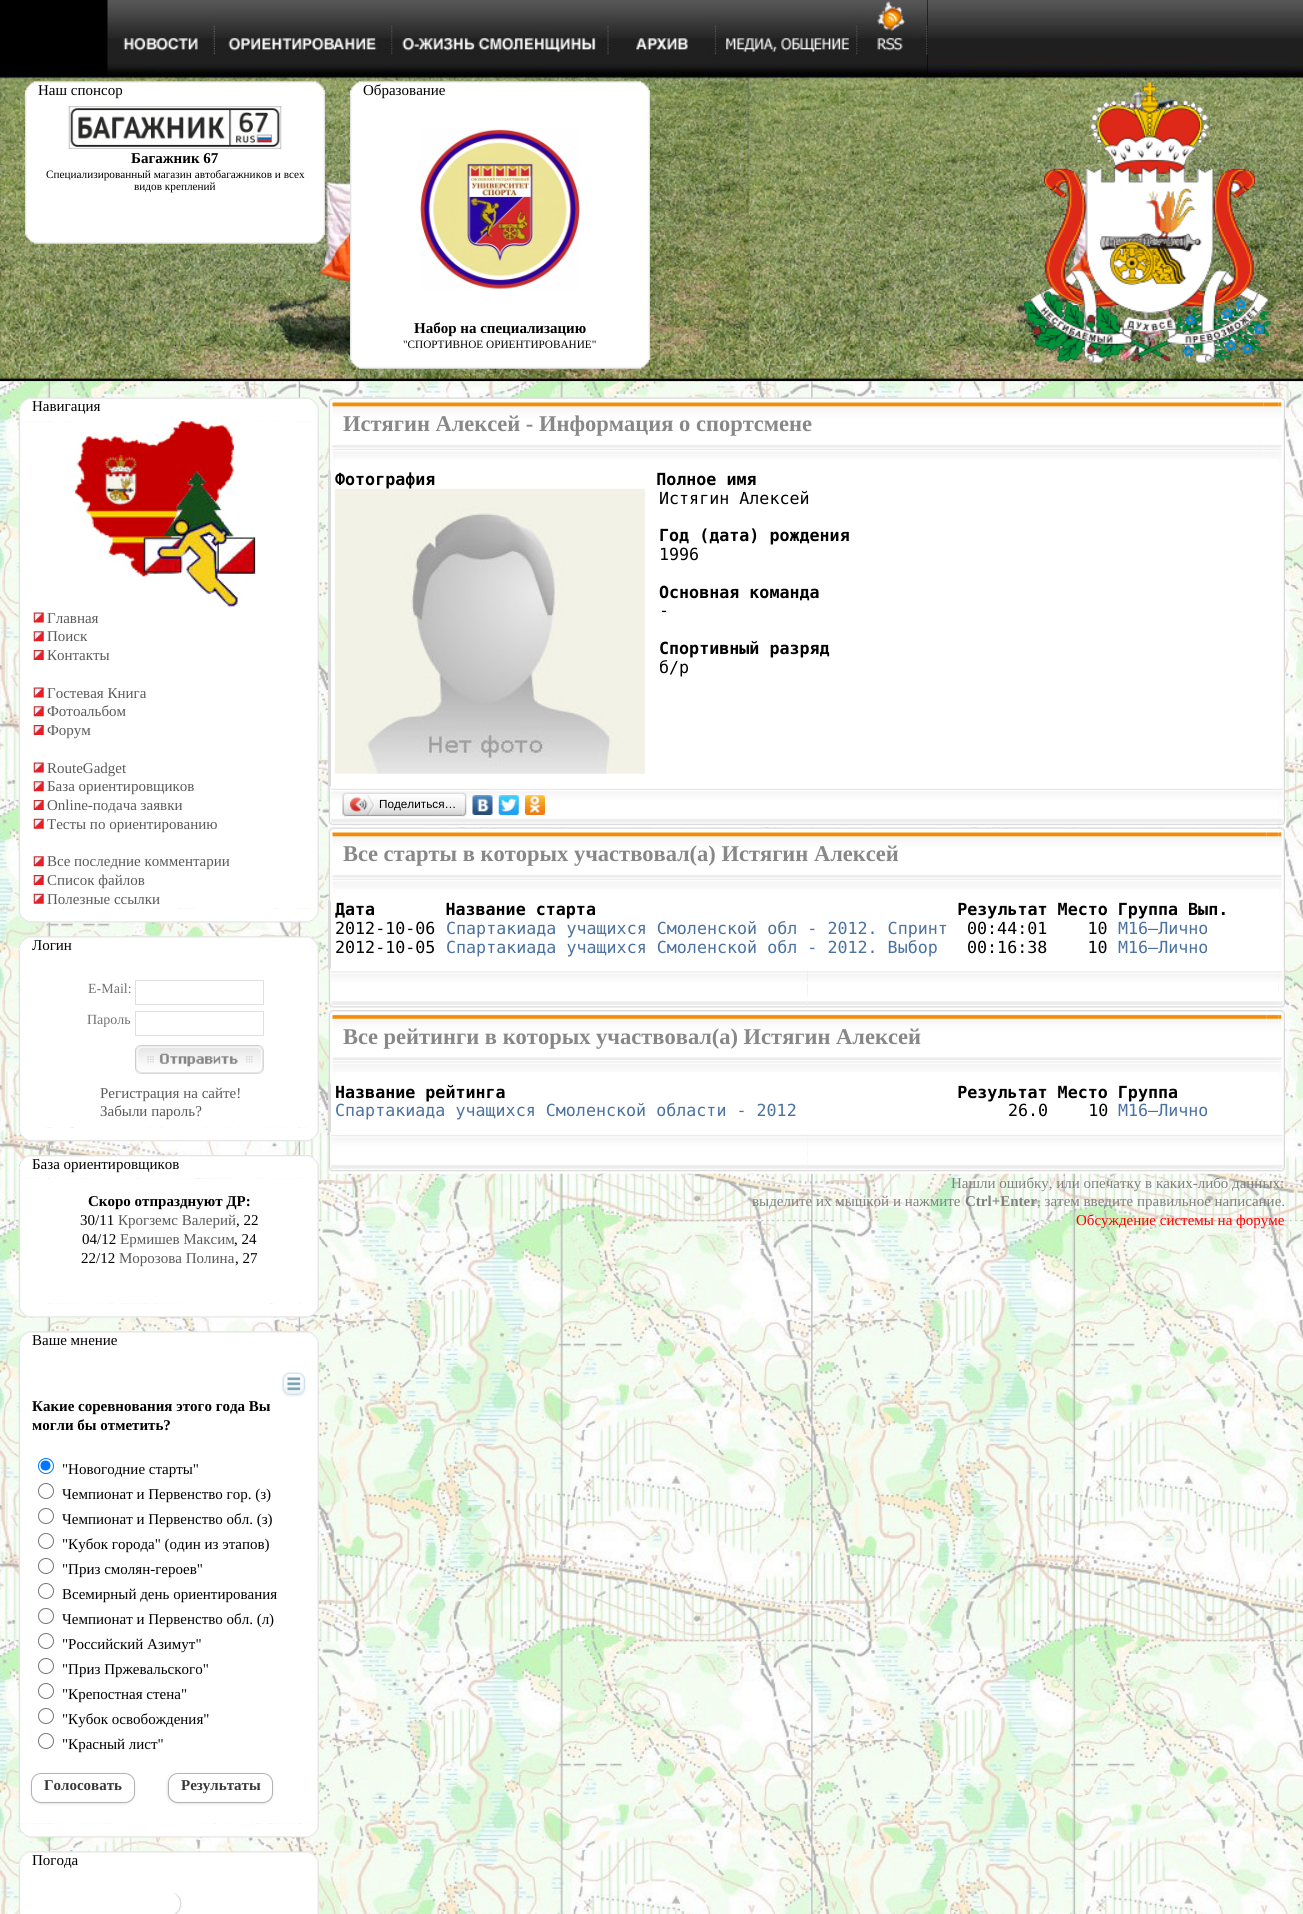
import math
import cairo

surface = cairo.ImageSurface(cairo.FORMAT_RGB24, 1303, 1914)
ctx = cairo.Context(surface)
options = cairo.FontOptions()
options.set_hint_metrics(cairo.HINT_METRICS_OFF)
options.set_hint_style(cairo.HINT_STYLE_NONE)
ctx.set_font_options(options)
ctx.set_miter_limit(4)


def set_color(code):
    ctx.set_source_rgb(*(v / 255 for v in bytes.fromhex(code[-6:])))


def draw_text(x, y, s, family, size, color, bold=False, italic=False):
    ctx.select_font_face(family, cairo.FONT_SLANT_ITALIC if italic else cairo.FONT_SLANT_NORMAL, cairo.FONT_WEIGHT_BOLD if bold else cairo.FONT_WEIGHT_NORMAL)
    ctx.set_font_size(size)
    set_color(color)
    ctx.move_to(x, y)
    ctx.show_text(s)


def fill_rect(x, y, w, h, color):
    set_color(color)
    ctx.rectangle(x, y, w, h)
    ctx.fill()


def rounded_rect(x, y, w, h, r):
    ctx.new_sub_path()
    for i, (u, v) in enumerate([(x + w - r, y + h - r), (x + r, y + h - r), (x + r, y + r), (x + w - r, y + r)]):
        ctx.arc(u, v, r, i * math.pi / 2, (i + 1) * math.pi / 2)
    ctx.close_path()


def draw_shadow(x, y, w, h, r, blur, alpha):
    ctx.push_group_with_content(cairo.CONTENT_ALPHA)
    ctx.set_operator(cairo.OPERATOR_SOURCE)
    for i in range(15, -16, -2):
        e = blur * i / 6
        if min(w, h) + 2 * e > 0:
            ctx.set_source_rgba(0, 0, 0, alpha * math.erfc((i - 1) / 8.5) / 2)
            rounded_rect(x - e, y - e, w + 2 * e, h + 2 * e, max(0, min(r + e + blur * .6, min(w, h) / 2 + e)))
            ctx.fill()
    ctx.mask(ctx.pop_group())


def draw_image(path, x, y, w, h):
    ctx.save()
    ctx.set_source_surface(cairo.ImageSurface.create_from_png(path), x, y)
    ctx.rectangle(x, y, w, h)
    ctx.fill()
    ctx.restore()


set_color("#ffffff")
ctx.paint()
draw_image("assets/img1.png", 0, 0, 1303, 382)
fill_rect(0, 0, 108, 76, "#000000")
draw_image("assets/img2.png", 107, 0, 108, 76)
draw_image("assets/img3.png", 215, 0, 178, 77)
draw_image("assets/img4.png", 392, 0, 217, 76)
draw_image("assets/img5.png", 608, 0, 109, 76)
draw_image("assets/img6.png", 716, 0, 142, 76)
fill_rect(927, 0, 1, 76, "#000000")
draw_image("assets/img7.png", 857, 0, 71, 76)
draw_image("assets/img8.png", 25, 81, 300, 24)
draw_image("assets/img9.png", 25, 93, 2, 2)
draw_text(38, 95, "Наш спонсор", "Liberation Serif", 15, "#000000")
draw_image("assets/img10.png", 25, 105, 300, 125)
draw_image("assets/img11.png", 68, 106, 214, 43)
draw_text(131, 163, "Багажник 67", "Liberation Serif", 15, "#000000", bold=True)
draw_text(46, 178, "Специализированный магазин автобагажников и всех", "Liberation Serif", 11.25, "#000000")
draw_text(134, 190, "видов креплений", "Liberation Serif", 11.25, "#000000")
draw_image("assets/img12.png", 25, 230, 300, 14)
draw_image("assets/img13.png", 350, 81, 300, 24)
draw_image("assets/img9.png", 350, 93, 2, 2)
draw_text(363, 95, "Образование", "Liberation Serif", 15, "#000000")
draw_image("assets/img14.png", 350, 105, 300, 250)
draw_image("assets/img15.png", 420, 129, 160, 161)
draw_text(414, 333, "Набор на специализацию", "Liberation Serif", 15, "#000000", bold=True)
draw_text(403, 348, "\"СПОРТИВНОЕ ОРИЕНТИРОВАНИЕ\"", "Liberation Serif", 11.25, "#000000")
draw_image("assets/img16.png", 350, 355, 300, 14)
draw_image("assets/img17.png", 1022, 81, 251, 283)
draw_image("assets/img18.png", 0, 381, 1303, 1533)
draw_image("assets/img19.png", 18, 397, 301, 25)
draw_image("assets/img20.png", 18, 410, 2, 2)
draw_text(32, 411, "Навигация", "Liberation Serif", 15, "#000000")
draw_image("assets/img21.png", 18, 421, 301, 488)
draw_image("assets/img22.png", 75, 421, 186, 186)
draw_image("assets/img23.png", 33, 612, 11, 11)
draw_text(47, 623, "Главная", "Liberation Serif", 15, "#5a5a5a")
draw_image("assets/img24.png", 33, 631, 11, 11)
draw_text(47, 641, "Поиск", "Liberation Serif", 15, "#5a5a5a")
draw_image("assets/img25.png", 33, 650, 11, 10)
draw_text(47, 660, "Контакты", "Liberation Serif", 15, "#5a5a5a")
draw_image("assets/img23.png", 33, 687, 11, 11)
draw_text(47, 698, "Гостевая Книга", "Liberation Serif", 15, "#5a5a5a")
draw_image("assets/img24.png", 33, 706, 11, 11)
draw_text(47, 716, "Фотоальбом", "Liberation Serif", 15, "#5a5a5a")
draw_image("assets/img25.png", 33, 725, 11, 10)
draw_text(47, 735, "Форум", "Liberation Serif", 15, "#5a5a5a")
draw_image("assets/img23.png", 33, 762, 11, 11)
draw_text(47, 773, "RouteGadget", "Liberation Serif", 15, "#5a5a5a")
draw_image("assets/img24.png", 33, 781, 11, 11)
draw_text(47, 791, "База ориентировщиков", "Liberation Serif", 15, "#5a5a5a")
draw_image("assets/img25.png", 33, 800, 11, 10)
draw_text(47, 810, "Online-подача заявки", "Liberation Serif", 15, "#5a5a5a")
draw_image("assets/img26.png", 33, 818, 11, 11)
draw_text(47, 829, "Тесты по ориентированию", "Liberation Serif", 15, "#5a5a5a")
draw_image("assets/img24.png", 33, 856, 11, 11)
draw_text(47, 866, "Все последние комментарии", "Liberation Serif", 15, "#5a5a5a")
draw_image("assets/img25.png", 33, 875, 11, 10)
draw_text(47, 885, "Список файлов", "Liberation Serif", 15, "#5a5a5a")
draw_image("assets/img26.png", 33, 893, 11, 11)
draw_text(47, 904, "Полезные ссылки", "Liberation Serif", 15, "#5a5a5a")
draw_image("assets/img27.png", 18, 908, 301, 15)
draw_image("assets/img28.png", 18, 936, 301, 24)
draw_image("assets/img29.png", 18, 948, 2, 2)
draw_text(32, 950, "Логин", "Liberation Serif", 15, "#000000")
draw_image("assets/img30.png", 18, 960, 301, 168)
draw_text(88, 993, "E-Mail:", "Liberation Serif", 14, "#727272")
ctx.rectangle(135.5, 980.5, 128, 24)
set_color("#e0e0e0")
ctx.set_line_width(1)
ctx.stroke()
draw_text(87, 1024, "Пароль", "Liberation Serif", 14, "#727272")
ctx.rectangle(135.5, 1011.5, 128, 24)
set_color("#e0e0e0")
ctx.stroke()
draw_image("assets/img31.png", 135, 1045, 129, 29)
draw_text(100, 1098, "Регистрация на сайте!", "Liberation Serif", 15, "#5a5a5a")
draw_text(100, 1116, "Забыли пароль?", "Liberation Serif", 15, "#5a5a5a")
draw_image("assets/img32.png", 18, 1127, 301, 15)
draw_image("assets/img33.png", 18, 1155, 301, 24)
draw_image("assets/img34.png", 19, 1167, 1, 2)
draw_text(32, 1169, "База ориентировщиков", "Liberation Serif", 15, "#000000")
draw_image("assets/img35.png", 18, 1178, 301, 126)
draw_text(88, 1206, "Скоро отпразднуют ДР:", "Liberation Serif", 15, "#000000", bold=True)
draw_text(80, 1225, "30/11", "Liberation Serif", 15, "#000000")
draw_text(118, 1225, "Крогземс Валерий", "Liberation Serif", 15, "#5a5a5a")
draw_text(236, 1225, ", 22", "Liberation Serif", 15, "#000000")
draw_text(82, 1244, "04/12", "Liberation Serif", 15, "#000000")
draw_text(120, 1244, "Ермишев Максим", "Liberation Serif", 15, "#5a5a5a")
draw_text(234, 1244, ", 24", "Liberation Serif", 15, "#000000")
draw_text(81, 1263, "22/12", "Liberation Serif", 15, "#000000")
draw_text(119, 1263, "Морозова Полина", "Liberation Serif", 15, "#5a5a5a")
draw_text(235, 1263, ", 27", "Liberation Serif", 15, "#000000")
draw_image("assets/img36.png", 18, 1303, 301, 15)
draw_image("assets/img37.png", 18, 1331, 301, 24)
draw_image("assets/img38.png", 18, 1343, 2, 2)
draw_text(32, 1345, "Ваше мнение", "Liberation Serif", 15, "#000000")
draw_image("assets/img39.png", 18, 1355, 301, 469)
draw_image("assets/img40.png", 282, 1372, 24, 25)
draw_text(32, 1411, "Какие соревнования этого года Вы", "Liberation Serif", 15, "#000000", bold=True)
draw_text(32, 1430, "могли бы отметить?", "Liberation Serif", 15, "#000000", bold=True)
ctx.new_path()
ctx.arc(46, 1466, 7.5, 0, 2 * math.pi)
set_color("#0075ff")
ctx.stroke()
ctx.arc(45.5, 1465.5, 5, 0, 2 * math.pi)
ctx.fill()
draw_text(62, 1474, "\"Новогодние старты\"", "Liberation Serif", 15, "#000000")
ctx.new_path()
ctx.arc(46, 1491, 7.5, 0, 2 * math.pi)
set_color("#767676")
ctx.stroke()
draw_text(62, 1499, "Чемпионат и Первенство гор. (з)", "Liberation Serif", 15, "#000000")
ctx.new_path()
ctx.arc(46, 1516, 7.5, 0, 2 * math.pi)
set_color("#767676")
ctx.stroke()
draw_text(62, 1524, "Чемпионат и Первенство обл. (з)", "Liberation Serif", 15, "#000000")
ctx.new_path()
ctx.arc(46, 1541, 7.5, 0, 2 * math.pi)
set_color("#767676")
ctx.stroke()
draw_text(62, 1549, "\"Кубок города\" (один из этапов)", "Liberation Serif", 15, "#000000")
ctx.new_path()
ctx.arc(46, 1566, 7.5, 0, 2 * math.pi)
set_color("#767676")
ctx.stroke()
draw_text(62, 1574, "\"Приз смолян-героев\"", "Liberation Serif", 15, "#000000")
ctx.new_path()
ctx.arc(46, 1591, 7.5, 0, 2 * math.pi)
set_color("#767676")
ctx.stroke()
draw_text(62, 1599, "Всемирный день ориентирования", "Liberation Serif", 15, "#000000")
ctx.new_path()
ctx.arc(46, 1616, 7.5, 0, 2 * math.pi)
set_color("#767676")
ctx.stroke()
draw_text(62, 1624, "Чемпионат и Первенство обл. (л)", "Liberation Serif", 15, "#000000")
ctx.new_path()
ctx.arc(46, 1641, 7.5, 0, 2 * math.pi)
set_color("#767676")
ctx.stroke()
draw_text(62, 1649, "\"Российский Азимут\"", "Liberation Serif", 15, "#000000")
ctx.new_path()
ctx.arc(46, 1666, 7.5, 0, 2 * math.pi)
set_color("#767676")
ctx.stroke()
draw_text(62, 1674, "\"Приз Пржевальского\"", "Liberation Serif", 15, "#000000")
ctx.new_path()
ctx.arc(46, 1691, 7.5, 0, 2 * math.pi)
set_color("#767676")
ctx.stroke()
draw_text(62, 1699, "\"Крепостная стена\"", "Liberation Serif", 15, "#000000")
ctx.new_path()
ctx.arc(46, 1716, 7.5, 0, 2 * math.pi)
set_color("#767676")
ctx.stroke()
draw_text(62, 1724, "\"Кубок освобождения\"", "Liberation Serif", 15, "#000000")
ctx.new_path()
ctx.arc(46, 1741, 7.5, 0, 2 * math.pi)
set_color("#767676")
ctx.stroke()
draw_text(62, 1749, "\"Красный лист\"", "Liberation Serif", 15, "#000000")
set_color("#000000")
draw_shadow(35, 1778, 96, 22, 6, 2.5, 1)
set_color("#ffffff")
rounded_rect(31.5, 1773.5, 103, 29, 9.5)
ctx.fill_preserve()
set_color("#b3b3b3")
ctx.stroke()
draw_text(44, 1790, "Голосовать", "Liberation Serif", 15, "#383838", bold=True)
set_color("#000000")
draw_shadow(171, 1778, 98, 22, 6, 2.5, 1)
set_color("#ffffff")
rounded_rect(168.5, 1773.5, 104, 29, 9.5)
ctx.fill_preserve()
set_color("#b3b3b3")
ctx.stroke()
draw_text(181, 1790, "Результаты", "Liberation Serif", 15, "#383838", bold=True)
draw_image("assets/img41.png", 18, 1823, 301, 15)
draw_image("assets/img42.png", 18, 1851, 301, 24)
draw_image("assets/img43.png", 18, 1863, 2, 2)
draw_text(32, 1865, "Погода", "Liberation Serif", 15, "#000000")
draw_image("assets/img44.png", 18, 1875, 301, 39)
draw_image("assets/img45.png", 173, 1892, 9, 22)
fill_rect(329, 398, 956, 390, "#ffffff")
draw_image("assets/img46.png", 328, 397, 7, 73)
draw_image("assets/img47.png", 335, 397, 929, 62)
draw_text(343, 431, "Истягин Алексей - Информация о спортсмене", "Liberation Serif", 22.5, "#888888", bold=True)
draw_image("assets/img48.png", 1263, 397, 16, 62)
draw_image("assets/img49.png", 1278, 397, 7, 73)
fill_rect(328, 470, 3, 317, "#dbdbdb")
draw_image("assets/img50.png", 330, 470, 1, 2)
draw_image("assets/img51.png", 335, 488, 310, 286)
draw_text(335, 485, "Фотография                      Полное имя", "DejaVu Sans Mono", 16.67, "#000000", bold=True)
draw_text(659, 504, "Истягин Алексей", "DejaVu Sans Mono", 16.67, "#000000")
draw_text(659, 541, "Год (дата) рождения", "DejaVu Sans Mono", 16.67, "#000000", bold=True)
draw_text(659, 560, "1996", "DejaVu Sans Mono", 16.67, "#000000")
draw_text(659, 598, "Основная команда", "DejaVu Sans Mono", 16.67, "#000000", bold=True)
draw_text(659, 616, "-", "DejaVu Sans Mono", 16.67, "#000000")
draw_text(659, 654, "Спортивный разряд", "DejaVu Sans Mono", 16.67, "#000000", bold=True)
draw_text(659, 673, "б/р", "DejaVu Sans Mono", 16.67, "#000000")
draw_image("assets/img52.png", 1283, 470, 2, 317)
draw_image("assets/img53.png", 329, 786, 2, 2)
draw_image("assets/img54.png", 329, 786, 2, 2)
draw_image("assets/img55.png", 1283, 786, 2, 2)
draw_image("assets/img56.png", 1284, 786, 1, 2)
draw_image("assets/img57.png", 328, 787, 7, 40)
draw_image("assets/img58.png", 335, 788, 944, 40)
draw_image("assets/img59.png", 346, 792, 117, 25)
draw_image("assets/img60.png", 342, 792, 5, 25)
draw_image("assets/img61.png", 350, 794, 25, 21)
draw_text(379, 808, "Поделиться…", "Liberation Sans", 11.75, "#000000")
draw_image("assets/img62.png", 462, 792, 5, 25)
draw_image("assets/img63.png", 472, 795, 21, 20)
draw_image("assets/img64.png", 498, 795, 21, 20)
draw_image("assets/img65.png", 525, 795, 20, 20)
fill_rect(331, 828, 954, 142, "#ffffff")
draw_image("assets/img68.png", 335, 827, 932, 62)
draw_image("assets/img69.png", 1266, 827, 13, 62)
draw_image("assets/img66.png", 1278, 787, 7, 41)
draw_image("assets/img67.png", 328, 827, 7, 73)
draw_text(343, 861, "Все старты в которых участвовал(а) Истягин Алексей", "Liberation Serif", 22.5, "#888888", bold=True)
draw_image("assets/img70.png", 1278, 827, 7, 73)
fill_rect(328, 900, 3, 69, "#dbdbdb")
draw_image("assets/img50.png", 330, 900, 1, 2)
draw_text(335, 915, "Дата       Название старта                                    Результат Место Группа Вып.", "DejaVu Sans Mono", 16.67, "#000000", bold=True)
draw_text(335, 934, "2012-10-06", "DejaVu Sans Mono", 16.67, "#000000")
draw_text(446, 934, "Спартакиада учащихся Смоленской обл - 2012. Спринт", "DejaVu Sans Mono", 16.67, "#4b719e")
draw_text(967, 934, "00:44:01    10", "DejaVu Sans Mono", 16.67, "#000000")
draw_text(1118, 934, "М16—Лично", "DejaVu Sans Mono", 16.67, "#4b719e")
draw_text(335, 953, "2012-10-05", "DejaVu Sans Mono", 16.67, "#000000")
draw_text(446, 953, "Спартакиада учащихся Смоленской обл - 2012. Выбор", "DejaVu Sans Mono", 16.67, "#4b719e")
draw_text(967, 953, "00:16:38    10", "DejaVu Sans Mono", 16.67, "#000000")
draw_text(1118, 953, "М16—Лично", "DejaVu Sans Mono", 16.67, "#4b719e")
draw_image("assets/img71.png", 1283, 900, 2, 69)
draw_image("assets/img72.png", 328, 968, 3, 2)
draw_image("assets/img73.png", 328, 968, 3, 2)
draw_image("assets/img74.png", 1283, 969, 2, 1)
draw_image("assets/img75.png", 328, 970, 7, 40)
draw_image("assets/img76.png", 335, 970, 473, 40)
draw_image("assets/img77.png", 807, 970, 472, 40)
draw_image("assets/img78.png", 1278, 970, 7, 39)
fill_rect(329, 1010, 956, 124, "#ffffff")
fill_rect(328, 1082, 3, 51, "#dbdbdb")
draw_image("assets/img79.png", 328, 1010, 7, 73)
draw_image("assets/img80.png", 335, 1010, 932, 62)
draw_text(343, 1044, "Все рейтинги в которых участвовал(а) Истягин Алексей", "Liberation Serif", 22.5, "#888888", bold=True)
draw_image("assets/img81.png", 1266, 1010, 13, 62)
draw_image("assets/img84.png", 1283, 1082, 2, 51)
draw_image("assets/img82.png", 1278, 1010, 7, 73)
draw_image("assets/img83.png", 330, 1082, 1, 2)
draw_text(335, 1098, "Название рейтинга                                             Результат Место Группа", "DejaVu Sans Mono", 16.67, "#000000", bold=True)
draw_text(335, 1116, "Спартакиада учащихся Смоленской области - 2012", "DejaVu Sans Mono", 16.67, "#4b719e")
draw_text(1008, 1116, "26.0    10", "DejaVu Sans Mono", 16.67, "#000000")
draw_text(1118, 1116, "М16—Лично", "DejaVu Sans Mono", 16.67, "#4b719e")
fill_rect(1284, 1082, 1, 1, "#dedede")
draw_image("assets/img85.png", 328, 1132, 3, 2)
draw_image("assets/img86.png", 329, 1132, 2, 2)
draw_image("assets/img87.png", 1283, 1132, 2, 2)
draw_image("assets/img88.png", 1284, 1132, 1, 2)
draw_image("assets/img89.png", 328, 1134, 7, 40)
draw_image("assets/img90.png", 335, 1134, 473, 40)
draw_image("assets/img91.png", 807, 1134, 472, 40)
draw_image("assets/img92.png", 1279, 1134, 6, 40)
draw_text(951, 1188, "Нашли ошибку, или опечатку в каких-либо данных:", "Liberation Serif", 15, "#808080")
draw_text(752, 1206, "выделите их мышкой и нажмите", "Liberation Serif", 15, "#808080")
draw_text(965, 1206, "Ctrl+Enter", "Liberation Serif", 15, "#808080", bold=True)
draw_text(1037, 1206, ", затем введите правильное написание.", "Liberation Serif", 15, "#808080")
draw_text(1076, 1225, "Обсуждение системы на форуме", "Liberation Serif", 15, "#ff0000")
surface.write_to_png("output.png")
